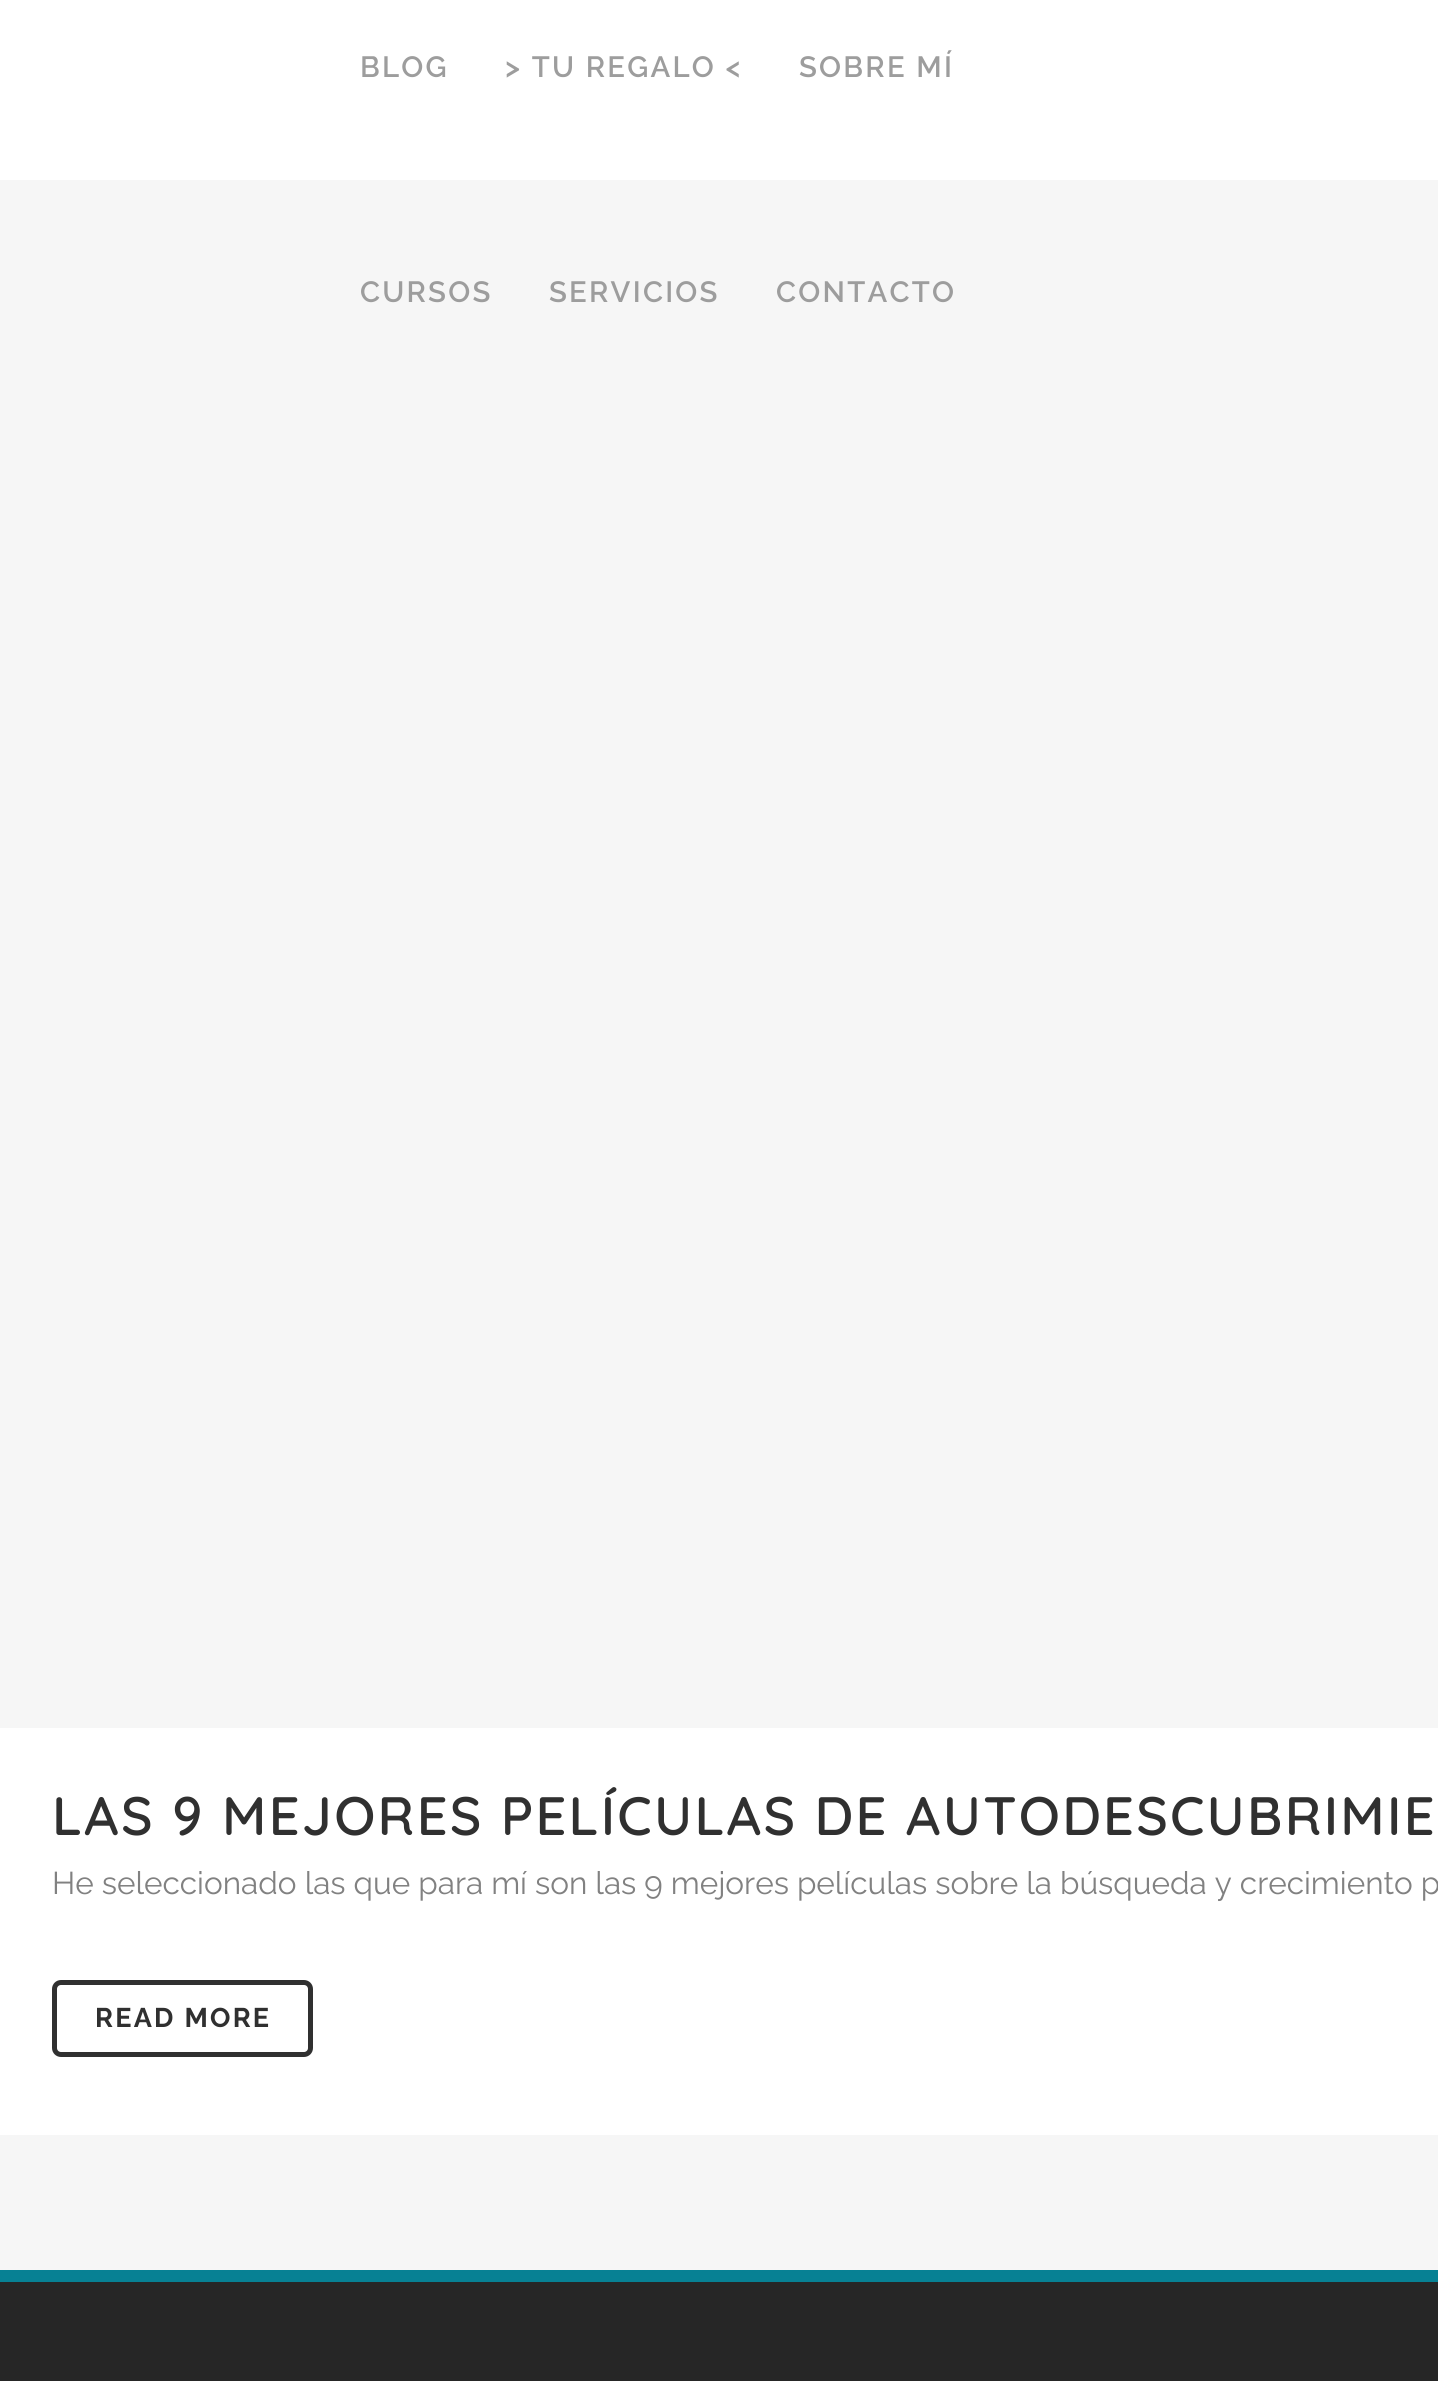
import math
import cairo

surface = cairo.ImageSurface(cairo.FORMAT_RGB24, 1438, 2381)
ctx = cairo.Context(surface)
options = cairo.FontOptions()
options.set_hint_metrics(cairo.HINT_METRICS_OFF)
options.set_hint_style(cairo.HINT_STYLE_NONE)
ctx.set_font_options(options)
ctx.set_miter_limit(4)


def set_color(code):
    ctx.set_source_rgb(*(v / 255 for v in bytes.fromhex(code[-6:])))


def draw_text(x, y, s, family, size, color, bold=False, italic=False):
    ctx.select_font_face(family, cairo.FONT_SLANT_ITALIC if italic else cairo.FONT_SLANT_NORMAL, cairo.FONT_WEIGHT_BOLD if bold else cairo.FONT_WEIGHT_NORMAL)
    ctx.set_font_size(size)
    set_color(color)
    ctx.move_to(x, y)
    ctx.show_text(s)


def draw_spaced(x, y, s, letter, word):
    ctx.move_to(x, y)
    for ch in s:
        ctx.show_text(ch)
        ctx.rel_move_to(letter + word * (ch == ' '), 0)


def fill_rect(x, y, w, h, color):
    set_color(color)
    ctx.rectangle(x, y, w, h)
    ctx.fill()


def rounded_rect(x, y, w, h, r):
    ctx.new_sub_path()
    for i, (u, v) in enumerate([(x + w - r, y + h - r), (x + r, y + h - r), (x + r, y + r), (x + w - r, y + r)]):
        ctx.arc(u, v, r, i * math.pi / 2, (i + 1) * math.pi / 2)
    ctx.close_path()


set_color("#f6f6f6")
ctx.paint()
fill_rect(0, 0, 1438, 180, "#ffffff")
ctx.select_font_face("Raleway SemiBold")
ctx.set_font_size(29.25)
set_color("#9d9d9d")
draw_spaced(360, 77, "BLOG", 2.25, 0)
draw_spaced(505, 77, "> TU REGALO <", 2.25, 0)
draw_spaced(799, 77, "SOBRE MÍ", 2.25, 0)
draw_spaced(360, 302, "CURSOS", 2.25, 0)
draw_spaced(549, 302, "SERVICIOS", 2.25, 0)
draw_spaced(776, 302, "CONTACTO", 2.25, 0)
fill_rect(0, 1728, 1438, 407, "#ffffff")
ctx.select_font_face("Quicksand SemiBold")
ctx.set_font_size(54)
set_color("#303030")
draw_spaced(52, 1835, "LAS 9 MEJORES PELÍCULAS DE AUTODESCUBRIMIE", 2.25, 0)
draw_text(52, 1894, "He seleccionado las que para mí son las 9 mejores películas sobre la búsqueda y crecimiento p", "Raleway", 31.5, "#818181")
rounded_rect(54.5, 1982.5, 256, 72, 6.5)
set_color("#303030")
ctx.set_line_width(5)
ctx.stroke()
ctx.select_font_face("Raleway", cairo.FONT_SLANT_NORMAL, cairo.FONT_WEIGHT_BOLD)
ctx.set_font_size(27)
draw_spaced(95, 2027, "READ MORE", 2.25, 0)
fill_rect(0, 2282, 1438, 99, "#262626")
fill_rect(0, 2270, 1438, 12, "#078194")
surface.write_to_png("output.png")
